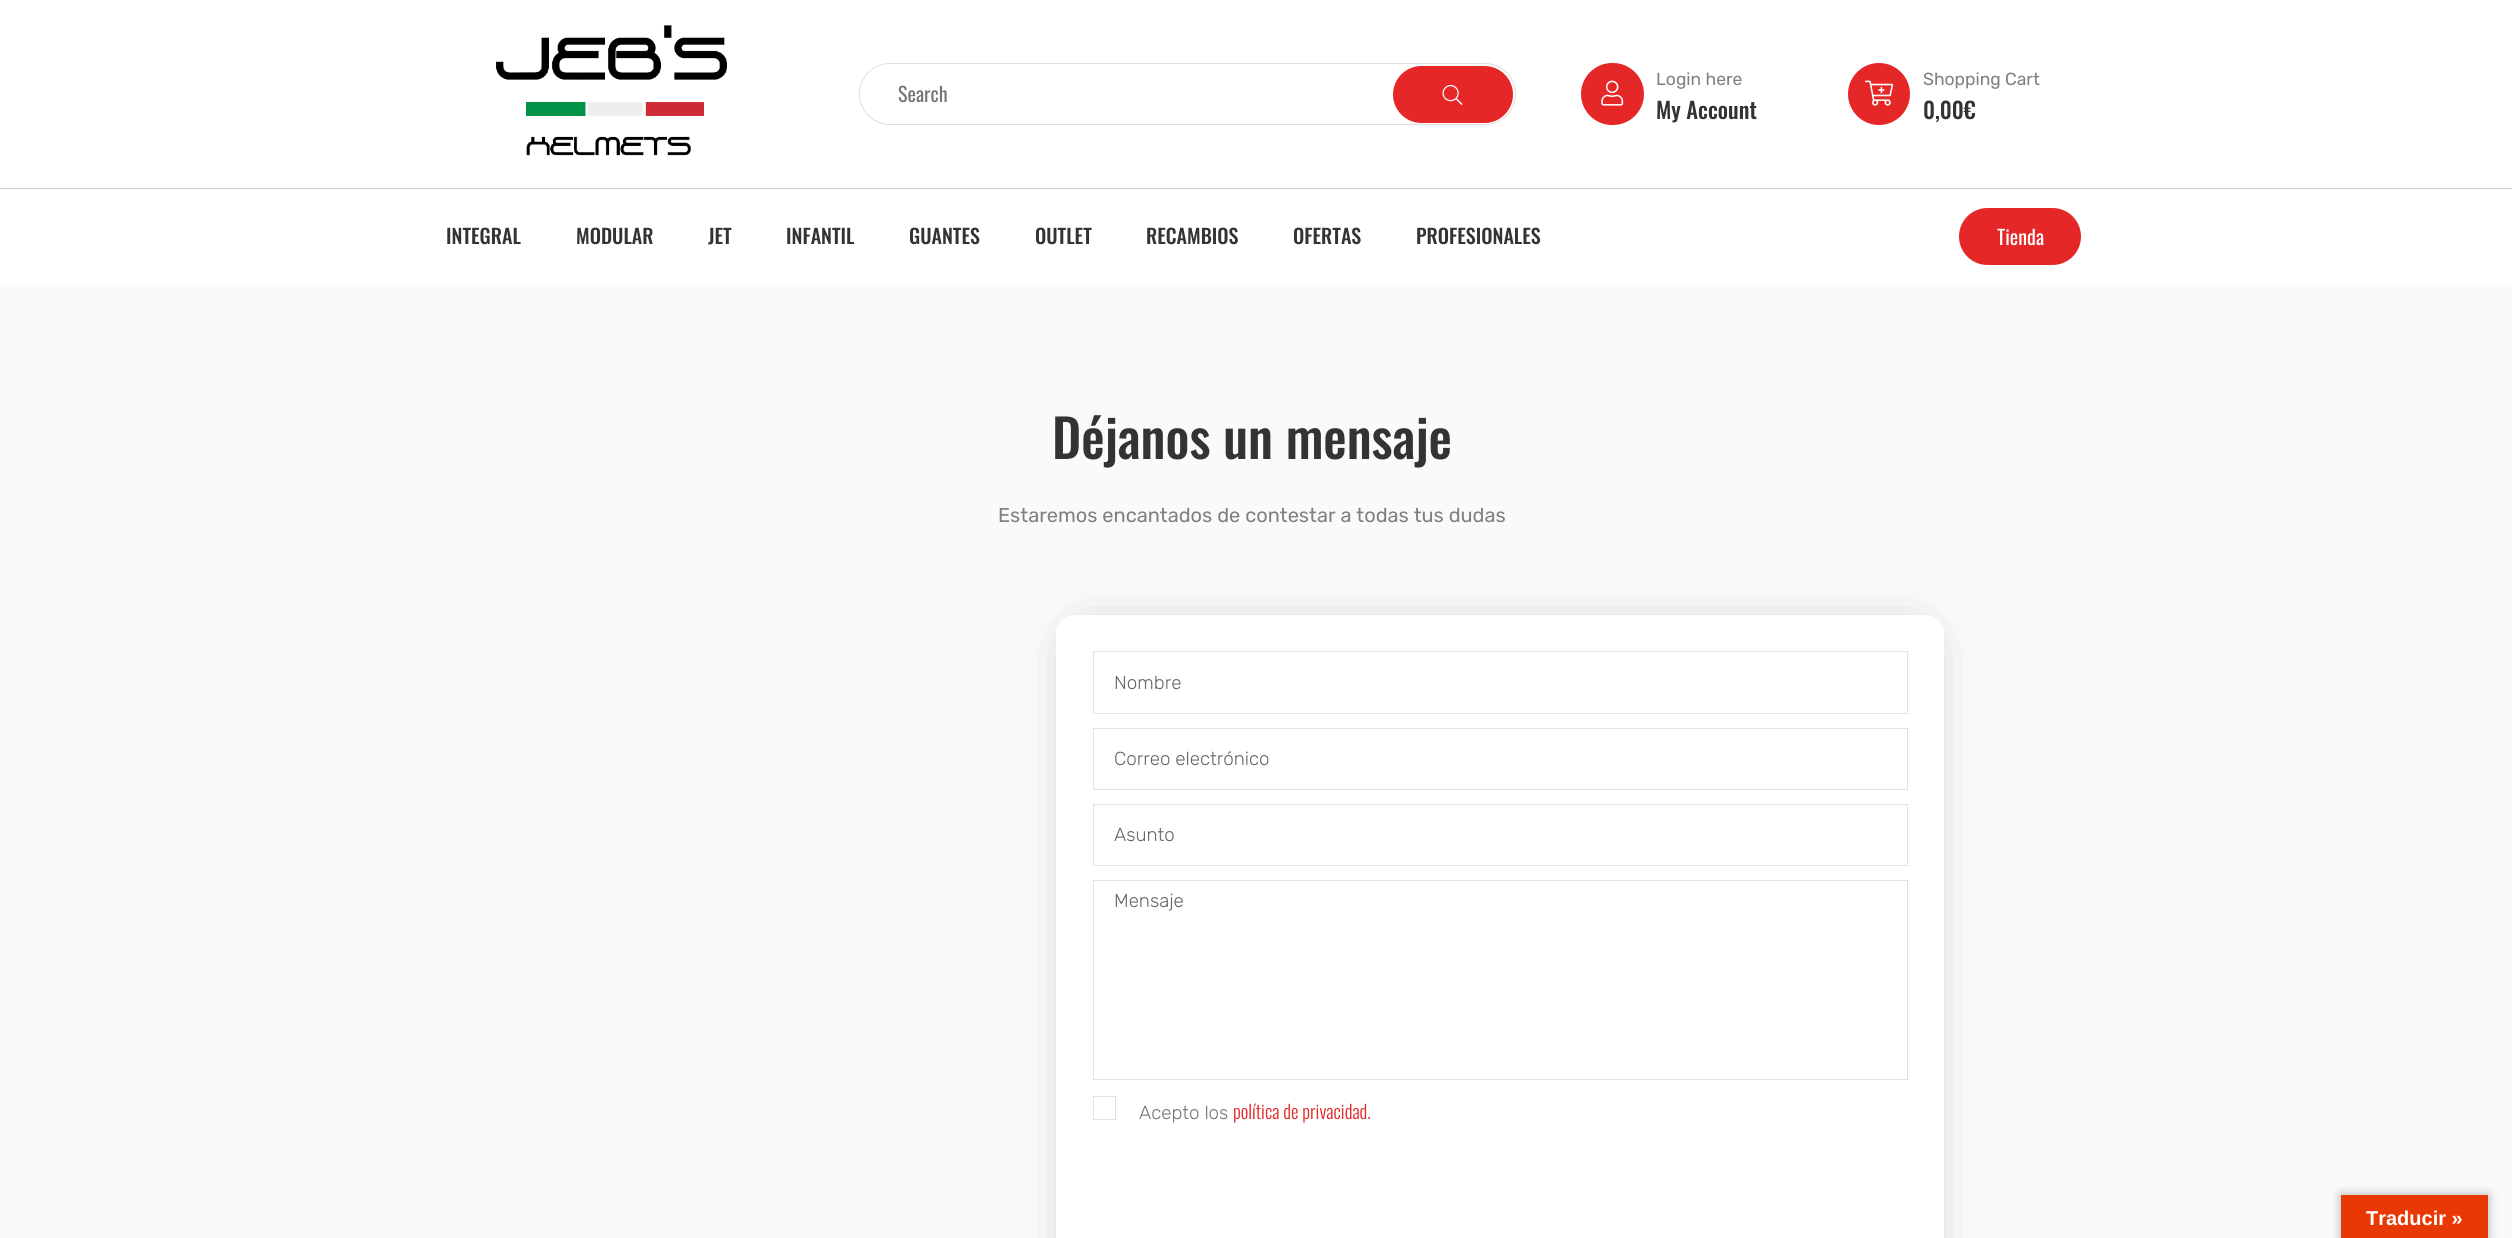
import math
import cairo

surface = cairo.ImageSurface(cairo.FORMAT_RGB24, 2512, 1238)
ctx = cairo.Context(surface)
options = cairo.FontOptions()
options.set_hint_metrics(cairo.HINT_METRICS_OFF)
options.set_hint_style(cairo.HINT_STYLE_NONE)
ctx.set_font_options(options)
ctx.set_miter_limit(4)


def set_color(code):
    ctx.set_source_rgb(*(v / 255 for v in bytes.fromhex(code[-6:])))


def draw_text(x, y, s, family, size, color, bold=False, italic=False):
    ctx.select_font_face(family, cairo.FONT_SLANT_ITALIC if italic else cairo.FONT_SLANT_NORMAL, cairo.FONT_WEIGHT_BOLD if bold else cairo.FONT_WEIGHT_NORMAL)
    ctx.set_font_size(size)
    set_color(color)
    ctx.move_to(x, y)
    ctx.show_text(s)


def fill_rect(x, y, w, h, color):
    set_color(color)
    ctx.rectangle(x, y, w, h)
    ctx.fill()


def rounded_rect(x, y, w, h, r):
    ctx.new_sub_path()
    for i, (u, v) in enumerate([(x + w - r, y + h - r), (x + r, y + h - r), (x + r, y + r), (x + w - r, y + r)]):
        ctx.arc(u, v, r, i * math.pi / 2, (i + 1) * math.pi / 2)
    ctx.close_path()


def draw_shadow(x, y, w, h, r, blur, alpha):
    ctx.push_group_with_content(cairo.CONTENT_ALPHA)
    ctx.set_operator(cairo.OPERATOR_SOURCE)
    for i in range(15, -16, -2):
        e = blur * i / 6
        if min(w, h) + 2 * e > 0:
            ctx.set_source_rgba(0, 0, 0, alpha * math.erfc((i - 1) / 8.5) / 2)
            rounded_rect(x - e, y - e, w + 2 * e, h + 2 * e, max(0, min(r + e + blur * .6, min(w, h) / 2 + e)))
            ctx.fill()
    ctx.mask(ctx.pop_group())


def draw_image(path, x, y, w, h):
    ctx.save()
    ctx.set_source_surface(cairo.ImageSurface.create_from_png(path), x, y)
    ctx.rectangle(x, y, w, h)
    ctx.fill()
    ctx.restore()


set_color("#ffffff")
ctx.paint()
fill_rect(0, 188, 2512, 1, "#cccccc")
draw_image("assets/img1.png", 496, 25, 231, 131)
rounded_rect(859.5, 63.5, 656, 61, 30.5)
set_color("#dfdfdf")
ctx.set_line_width(1)
ctx.stroke()
draw_text(898, 102, "Search", "Oswald", 20, "#757575")
set_color("#e52727")
rounded_rect(1393, 66, 120, 57, 28.5)
ctx.fill()
draw_image("assets/img2.png", 1442, 85, 21, 20)
rounded_rect(1581, 63, 63, 62, 31)
ctx.fill()
draw_image("assets/img3.png", 1601, 80, 23, 26)
draw_text(1656, 85, "Login here", "Rubik", 17.5, "#808080")
draw_text(1656, 119, "My Account", "Oswald Medium", 22.5, "#333333")
set_color("#e52727")
ctx.new_path()
ctx.arc(1879, 94, 31, 0, 2 * math.pi)
ctx.fill()
draw_image("assets/img4.png", 1865, 80, 29, 26)
draw_text(1923, 85, "Shopping Cart", "Rubik", 17.5, "#808080")
draw_text(1923, 119, "0,00€", "Oswald Medium", 22.5, "#333333")
draw_text(446, 244, "INTEGRAL", "Oswald Medium", 20, "#333333")
draw_text(576, 244, "MODULAR", "Oswald Medium", 20, "#333333")
draw_text(708, 244, "JET", "Oswald Medium", 20, "#333333")
draw_text(786, 244, "INFANTIL", "Oswald Medium", 20, "#333333")
draw_text(909, 244, "GUANTES", "Oswald Medium", 20, "#333333")
draw_text(1035, 244, "OUTLET", "Oswald Medium", 20, "#333333")
draw_text(1146, 244, "RECAMBIOS", "Oswald Medium", 20, "#333333")
draw_text(1293, 244, "OFERTAS", "Oswald Medium", 20, "#333333")
draw_text(1416, 244, "PROFESIONALES", "Oswald Medium", 20, "#333333")
set_color("#e52727")
rounded_rect(1959, 208, 122, 57, 28.5)
ctx.fill()
draw_text(1997, 245, "Tienda", "Oswald", 20, "#ffffff")
fill_rect(0, 284, 2512, 954, "#fafafa")
draw_text(1052, 459, "Déjanos un mensaje", "Oswald Medium", 52.5, "#333333")
draw_text(998, 522, "Estaremos encantados de contestar a todas tus dudas", "Rubik", 20, "#808080")
set_color("#000000")
draw_shadow(1085, 644, 830, 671, 0, 25.5, 0.5)
set_color("#ffffff")
rounded_rect(1056, 615, 888, 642, 19)
ctx.fill()
ctx.rectangle(1093.5, 651.5, 814, 62)
set_color("#e2e2e2")
ctx.stroke()
draw_text(1114, 689, "Nombre", "Rubik Light", 18.75, "#666666")
ctx.rectangle(1093.5, 728.5, 814, 61)
set_color("#e2e2e2")
ctx.stroke()
draw_text(1114, 765, "Correo electrónico", "Rubik Light", 18.75, "#666666")
ctx.rectangle(1093.5, 804.5, 814, 61)
set_color("#e2e2e2")
ctx.stroke()
draw_text(1114, 841, "Asunto", "Rubik Light", 18.75, "#666666")
ctx.rectangle(1093.5, 880.5, 814, 199)
set_color("#e2e2e2")
ctx.stroke()
draw_text(1114, 907, "Mensaje", "Rubik Light", 18.75, "#666666")
ctx.rectangle(1093.5, 1096.5, 22, 23)
set_color("#e2e2e2")
ctx.stroke()
draw_text(1139, 1119, "Acepto los", "Rubik Light", 18.75, "#757575")
draw_text(1233, 1119, "política de privacidad.", "Oswald Light", 18.75, "#e52727")
set_color("#000000")
draw_shadow(2341, 1195, 147, 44, 0, 5.5, 0.3)
fill_rect(2341, 1195, 147, 43, "#e83904")
draw_text(2366, 1225, "Traducir »", "Liberation Sans", 20, "#ffffff", bold=True)
surface.write_to_png("output.png")
